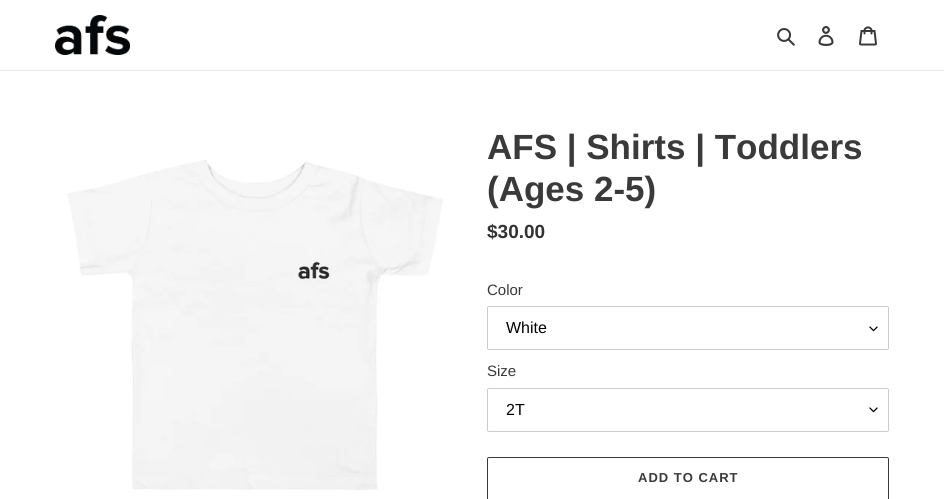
import math
import cairo

surface = cairo.ImageSurface(cairo.FORMAT_RGB24, 944, 499)
ctx = cairo.Context(surface)
options = cairo.FontOptions()
options.set_hint_metrics(cairo.HINT_METRICS_OFF)
options.set_hint_style(cairo.HINT_STYLE_NONE)
ctx.set_font_options(options)
ctx.set_miter_limit(4)


def set_color(code):
    ctx.set_source_rgb(*(v / 255 for v in bytes.fromhex(code[-6:])))


def draw_text(x, y, s, family, size, color, bold=False, italic=False):
    ctx.select_font_face(family, cairo.FONT_SLANT_ITALIC if italic else cairo.FONT_SLANT_NORMAL, cairo.FONT_WEIGHT_BOLD if bold else cairo.FONT_WEIGHT_NORMAL)
    ctx.set_font_size(size)
    set_color(color)
    ctx.move_to(x, y)
    ctx.show_text(s)


def draw_spaced(x, y, s, letter, word):
    ctx.move_to(x, y)
    for ch in s:
        ctx.show_text(ch)
        ctx.rel_move_to(letter + word * (ch == ' '), 0)


def fill_rect(x, y, w, h, color):
    set_color(color)
    ctx.rectangle(x, y, w, h)
    ctx.fill()


def rounded_rect(x, y, w, h, r):
    ctx.new_sub_path()
    for i, (u, v) in enumerate([(x + w - r, y + h - r), (x + r, y + h - r), (x + r, y + r), (x + w - r, y + r)]):
        ctx.arc(u, v, r, i * math.pi / 2, (i + 1) * math.pi / 2)
    ctx.close_path()


def draw_image(path, x, y, w, h):
    ctx.save()
    ctx.set_source_surface(cairo.ImageSurface.create_from_png(path), x, y)
    ctx.rectangle(x, y, w, h)
    ctx.fill()
    ctx.restore()


set_color("#ffffff")
ctx.paint()
fill_rect(0, 70, 944, 1, "#ebebeb")
draw_image("assets/img1.png", 55, 15, 75, 40)
draw_image("assets/img2.png", 777, 28, 18, 18)
draw_image("assets/img3.png", 818, 26, 16, 20)
draw_image("assets/img4.png", 859, 26, 18, 20)
draw_image("assets/img5.png", 67, 159, 376, 331)
draw_text(487, 159, "AFS | Shirts | Toddlers", "Liberation Sans", 35, "#3a3a3a", bold=True)
draw_text(487, 201, "(Ages 2-5)", "Liberation Sans", 35, "#3a3a3a", bold=True)
draw_text(487, 238, "$30.00", "Liberation Sans", 19, "#333232", bold=True)
draw_text(487, 295, "Color", "Liberation Sans", 15, "#3a3a3a")
draw_image("assets/img6.png", 869, 326, 9, 6)
rounded_rect(487.5, 306.5, 401, 43, 1.5)
set_color("#cccccc")
ctx.set_line_width(1)
ctx.stroke()
draw_text(506, 333, "White", "Liberation Sans", 16, "#000000")
draw_text(487, 376, "Size", "Liberation Sans", 15, "#3a3a3a")
draw_image("assets/img6.png", 869, 407, 9, 6)
rounded_rect(487.5, 388.5, 401, 43, 1.5)
set_color("#cccccc")
ctx.stroke()
draw_text(506, 415, "2T", "Liberation Sans", 16, "#000000")
rounded_rect(487.5, 457.5, 401, 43, 1.5)
set_color("#3a3a3a")
ctx.stroke()
ctx.select_font_face("Liberation Sans", cairo.FONT_SLANT_NORMAL, cairo.FONT_WEIGHT_BOLD)
ctx.set_font_size(13)
draw_spaced(638, 482, "ADD TO CART", 1, 0)
surface.write_to_png("output.png")
